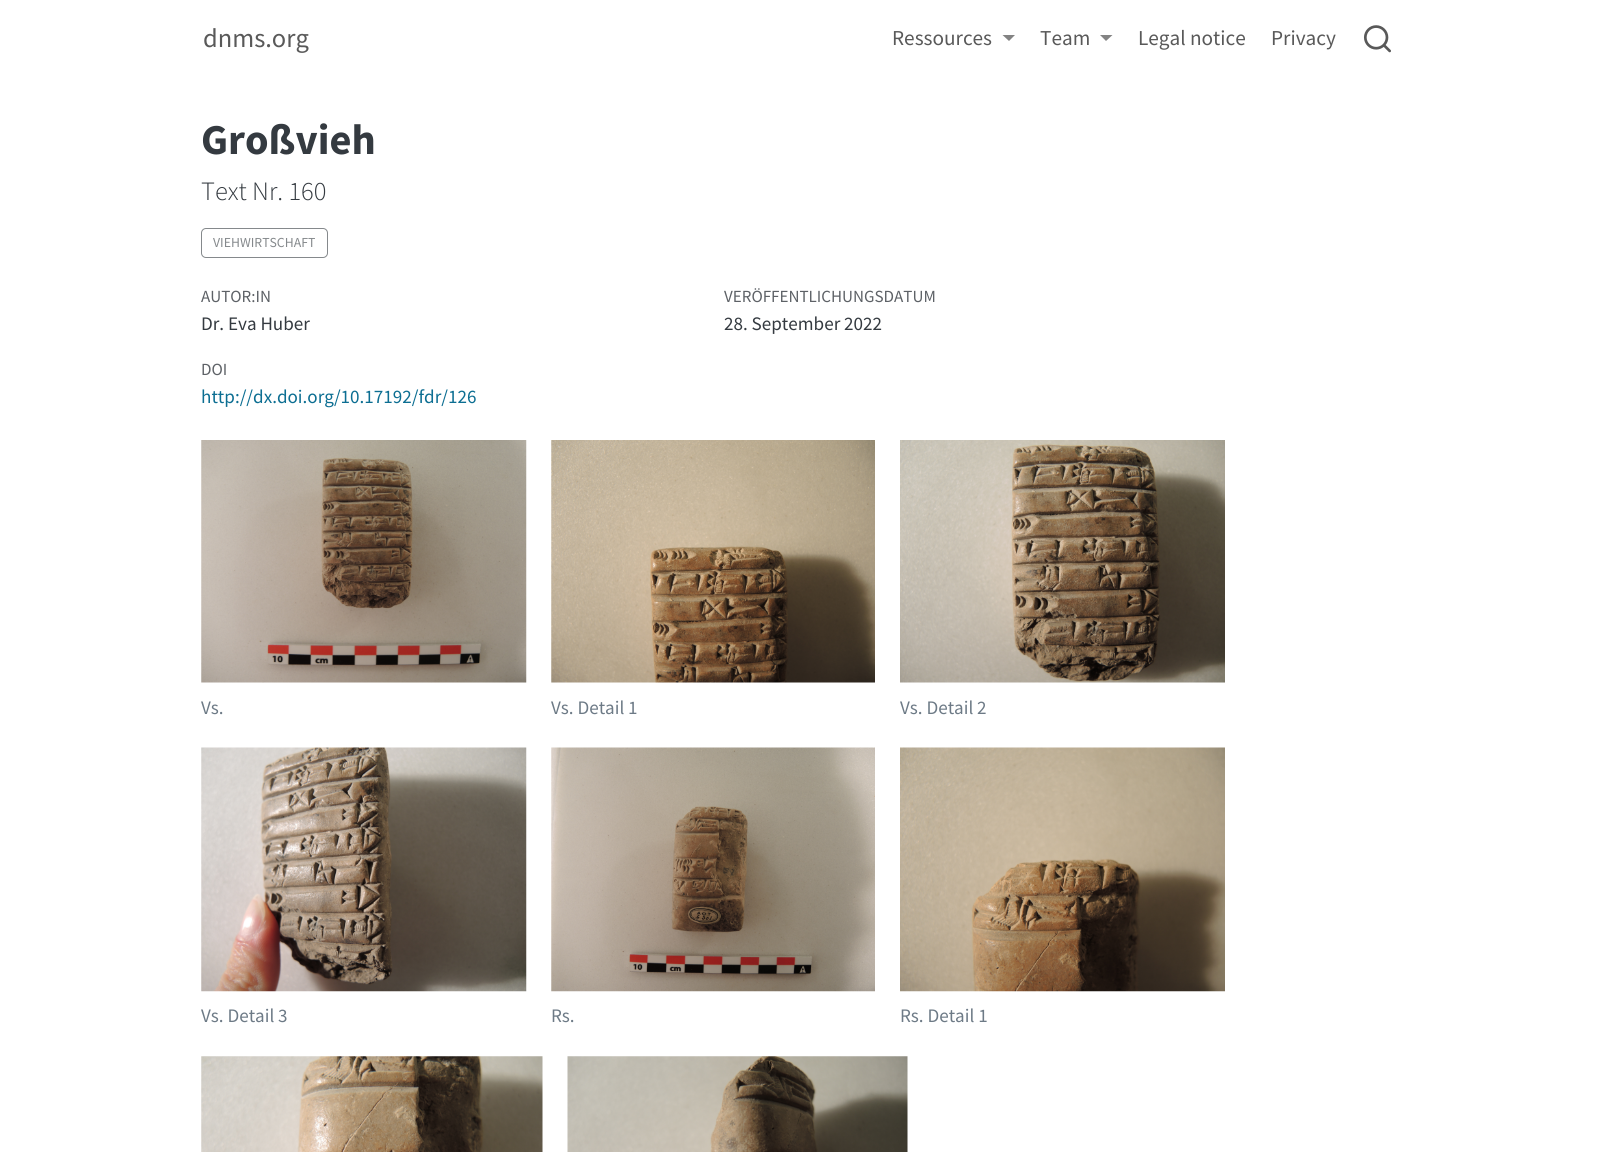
import math
import cairo

surface = cairo.ImageSurface(cairo.FORMAT_RGB24, 1607, 1152)
ctx = cairo.Context(surface)
options = cairo.FontOptions()
options.set_hint_metrics(cairo.HINT_METRICS_OFF)
options.set_hint_style(cairo.HINT_STYLE_NONE)
ctx.set_font_options(options)
ctx.set_miter_limit(4)


def set_color(code):
    ctx.set_source_rgb(*(v / 255 for v in bytes.fromhex(code[-6:])))


def draw_text(x, y, s, family, size, color, bold=False, italic=False):
    ctx.select_font_face(family, cairo.FONT_SLANT_ITALIC if italic else cairo.FONT_SLANT_NORMAL, cairo.FONT_WEIGHT_BOLD if bold else cairo.FONT_WEIGHT_NORMAL)
    ctx.set_font_size(size)
    set_color(color)
    ctx.move_to(x, y)
    ctx.show_text(s)


def rounded_rect(x, y, w, h, r):
    ctx.new_sub_path()
    for i, (u, v) in enumerate([(x + w - r, y + h - r), (x + r, y + h - r), (x + r, y + r), (x + w - r, y + r)]):
        ctx.arc(u, v, r, i * math.pi / 2, (i + 1) * math.pi / 2)
    ctx.close_path()


def draw_image(path, x, y, w, h):
    ctx.save()
    ctx.set_source_surface(cairo.ImageSurface.create_from_png(path), x, y)
    ctx.rectangle(x, y, w, h)
    ctx.fill()
    ctx.restore()


set_color("#ffffff")
ctx.paint()
draw_text(203, 47, "dnms.org", "Source Sans Pro", 26.5, "#595959")
draw_text(892, 45, "Ressources", "Source Sans Pro", 21.25, "#595959")
set_color("#838383")
ctx.new_path()
ctx.move_to(1002.5, 35)
ctx.line_to(1015, 35)
ctx.line_to(1009, 41)
ctx.close_path()
ctx.fill()
draw_text(1040, 45, "Team", "Source Sans Pro", 21.25, "#595959")
set_color("#838383")
ctx.new_path()
ctx.move_to(1100, 35)
ctx.line_to(1112.5, 35)
ctx.line_to(1106, 41)
ctx.close_path()
ctx.fill()
draw_text(1138, 45, "Legal notice", "Source Sans Pro", 21.25, "#595959")
draw_text(1271, 45, "Privacy", "Source Sans Pro", 21.25, "#595959")
draw_image("assets/img1.png", 1364, 25, 27, 28)
draw_text(201, 154, "Großvieh", "Source Sans Pro", 42.5, "#343a40", bold=True)
draw_text(201, 200, "Text Nr. 160", "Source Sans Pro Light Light", 26.5, "#343a40")
rounded_rect(201.5, 228.5, 126, 29, 4.5)
set_color("#85898c")
ctx.set_line_width(1)
ctx.stroke()
draw_text(213, 247, "VIEHWIRTSCHAFT", "Source Sans Pro", 13.75, "#85898c")
draw_text(201, 302, "AUTOR:IN", "Source Sans Pro", 17, "#5d6166")
draw_text(201, 330, "Dr. Eva Huber", "Source Sans Pro", 19.1, "#343a40")
draw_text(724, 302, "VERÖFFENTLICHUNGSDATUM", "Source Sans Pro", 17, "#5d6166")
draw_text(724, 330, "28. September 2022", "Source Sans Pro", 19.1, "#343a40")
draw_text(201, 375, "DOI", "Source Sans Pro", 17, "#5d6166")
draw_text(201, 403, "http://dx.doi.org/10.17192/fdr/126", "Source Sans Pro", 19.1, "#0c6e92")
draw_image("assets/img2.png", 201, 440, 326, 243)
draw_text(201, 714, "Vs.", "Source Sans Pro", 19.1, "#6d7a86")
draw_image("assets/img3.png", 551, 440, 324, 243)
draw_text(551, 714, "Vs. Detail 1", "Source Sans Pro", 19.1, "#6d7a86")
draw_image("assets/img4.png", 900, 440, 325, 243)
draw_text(900, 714, "Vs. Detail 2", "Source Sans Pro", 19.1, "#6d7a86")
draw_image("assets/img5.png", 201, 747, 326, 245)
draw_text(201, 1022, "Vs. Detail 3", "Source Sans Pro", 19.1, "#6d7a86")
draw_image("assets/img6.png", 551, 747, 324, 245)
draw_text(551, 1022, "Rs.", "Source Sans Pro", 19.1, "#6d7a86")
draw_image("assets/img7.png", 900, 747, 325, 245)
draw_text(900, 1022, "Rs. Detail 1", "Source Sans Pro", 19.1, "#6d7a86")
draw_image("assets/img8.png", 201, 1056, 342, 96)
draw_image("assets/img9.png", 567, 1056, 341, 96)
surface.write_to_png("output.png")
